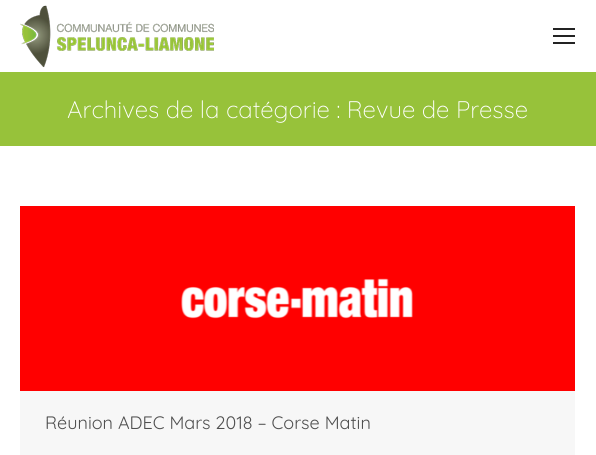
import math
import cairo

surface = cairo.ImageSurface(cairo.FORMAT_RGB24, 596, 455)
ctx = cairo.Context(surface)
options = cairo.FontOptions()
options.set_hint_metrics(cairo.HINT_METRICS_OFF)
options.set_hint_style(cairo.HINT_STYLE_NONE)
ctx.set_font_options(options)
ctx.set_miter_limit(4)


def set_color(code):
    ctx.set_source_rgb(*(v / 255 for v in bytes.fromhex(code[-6:])))


def draw_text(x, y, s, family, size, color, bold=False, italic=False):
    ctx.select_font_face(family, cairo.FONT_SLANT_ITALIC if italic else cairo.FONT_SLANT_NORMAL, cairo.FONT_WEIGHT_BOLD if bold else cairo.FONT_WEIGHT_NORMAL)
    ctx.set_font_size(size)
    set_color(color)
    ctx.move_to(x, y)
    ctx.show_text(s)


def fill_rect(x, y, w, h, color):
    set_color(color)
    ctx.rectangle(x, y, w, h)
    ctx.fill()


def draw_image(path, x, y, w, h):
    ctx.save()
    ctx.set_source_surface(cairo.ImageSurface.create_from_png(path), x, y)
    ctx.rectangle(x, y, w, h)
    ctx.fill()
    ctx.restore()


set_color("#ffffff")
ctx.paint()
draw_image("assets/img1.png", 20, 5, 194, 63)
fill_rect(553, 28, 22, 2, "#232323")
fill_rect(553, 35, 22, 2, "#232323")
fill_rect(553, 42, 22, 2, "#232323")
fill_rect(0, 72, 596, 74, "#97c23a")
draw_text(67, 118, "Archives de la catégorie : Revue de Presse", "Quicksand Light", 24, "#ffffff")
fill_rect(20, 391, 555, 64, "#f7f7f7")
draw_image("assets/img2.png", 20, 206, 555, 185)
draw_text(45, 429, "Réunion ADEC Mars 2018 – Corse Matin", "Quicksand", 18, "#505050")
surface.write_to_png("output.png")
